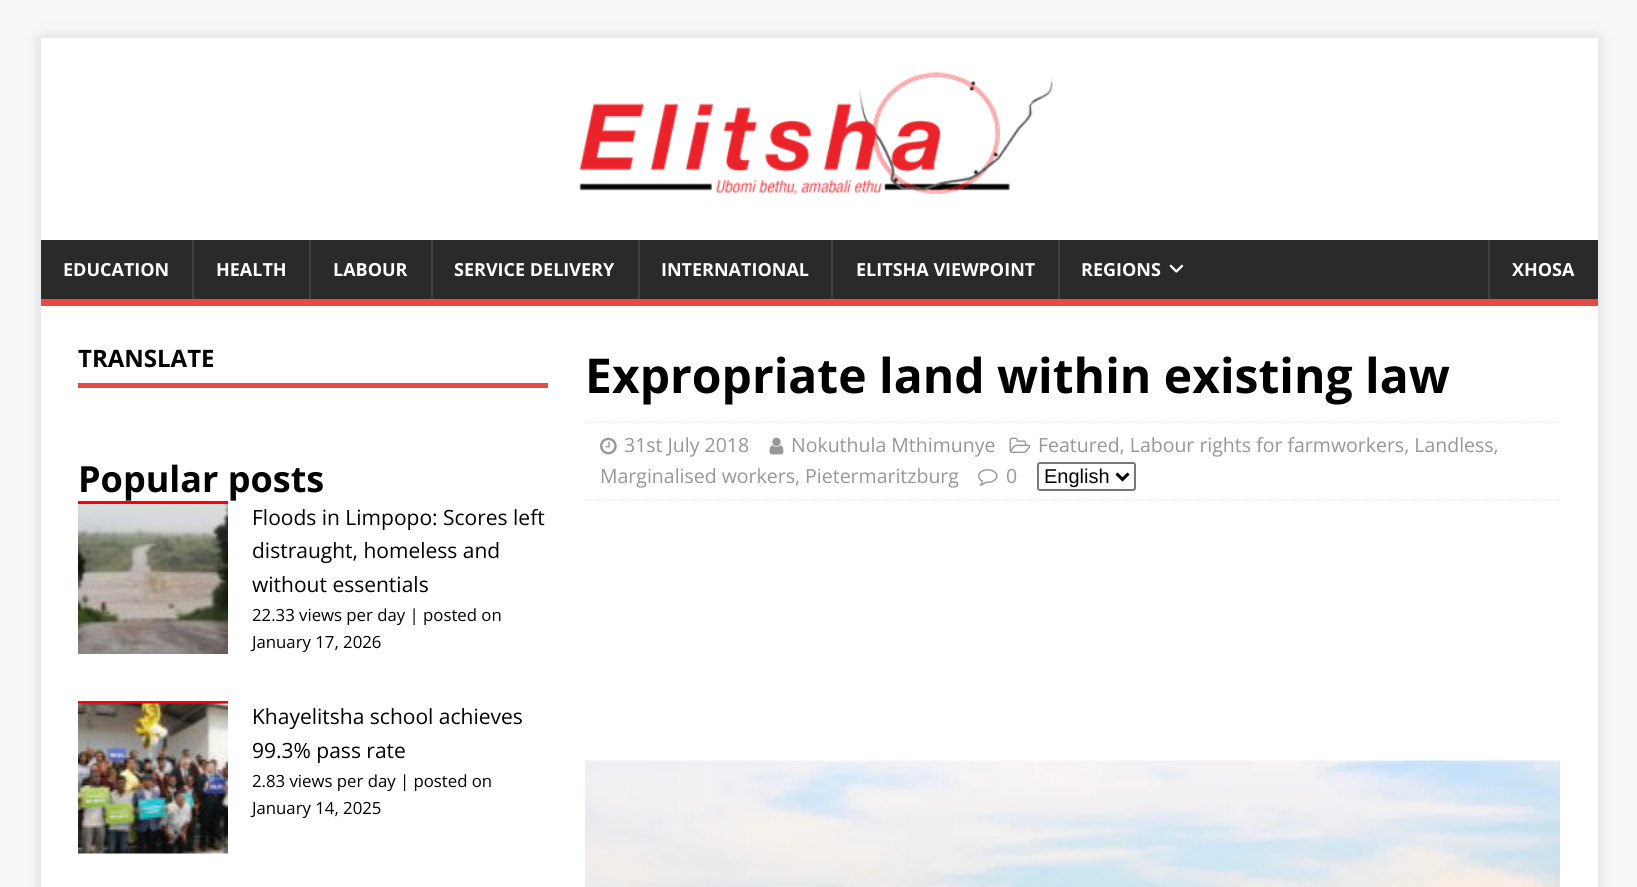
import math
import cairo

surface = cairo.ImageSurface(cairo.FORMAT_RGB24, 1637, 887)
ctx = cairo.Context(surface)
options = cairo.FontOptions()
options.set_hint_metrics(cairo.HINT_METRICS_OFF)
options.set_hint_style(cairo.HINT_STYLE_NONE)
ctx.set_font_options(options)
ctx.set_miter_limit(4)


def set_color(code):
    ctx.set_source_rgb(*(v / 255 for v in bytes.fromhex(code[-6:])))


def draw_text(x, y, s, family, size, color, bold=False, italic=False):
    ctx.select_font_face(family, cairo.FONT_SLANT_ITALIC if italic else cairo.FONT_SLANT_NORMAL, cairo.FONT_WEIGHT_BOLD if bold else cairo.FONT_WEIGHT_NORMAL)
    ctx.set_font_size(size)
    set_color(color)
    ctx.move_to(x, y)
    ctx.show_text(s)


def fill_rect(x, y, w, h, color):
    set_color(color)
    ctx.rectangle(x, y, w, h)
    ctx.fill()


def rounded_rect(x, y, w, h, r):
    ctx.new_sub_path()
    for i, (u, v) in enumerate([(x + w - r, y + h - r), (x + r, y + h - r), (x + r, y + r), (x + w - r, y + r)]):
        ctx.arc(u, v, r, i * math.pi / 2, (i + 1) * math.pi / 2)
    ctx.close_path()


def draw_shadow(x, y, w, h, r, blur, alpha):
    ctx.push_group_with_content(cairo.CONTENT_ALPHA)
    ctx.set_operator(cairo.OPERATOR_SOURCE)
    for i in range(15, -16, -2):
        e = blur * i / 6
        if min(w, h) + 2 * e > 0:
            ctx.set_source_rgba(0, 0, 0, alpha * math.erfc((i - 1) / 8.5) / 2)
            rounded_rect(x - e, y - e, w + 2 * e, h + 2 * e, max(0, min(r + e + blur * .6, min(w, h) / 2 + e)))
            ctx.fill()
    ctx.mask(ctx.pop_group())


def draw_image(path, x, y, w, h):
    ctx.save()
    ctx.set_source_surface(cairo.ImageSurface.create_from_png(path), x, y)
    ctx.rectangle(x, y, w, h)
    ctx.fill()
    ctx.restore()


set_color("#f7f7f7")
ctx.paint()
set_color("#323232")
draw_shadow(41, 38, 1557, 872, 0, 7.5, 0.17)
fill_rect(41, 38, 1557, 202, "#ffffff")
draw_image("assets/img1.png", 579, 72, 474, 124)
fill_rect(41, 240, 1557, 59, "#2a2a2a")
fill_rect(41, 299, 1557, 7, "#e64946")
draw_text(63, 276, "EDUCATION", "Open Sans", 18, "#ffffff", bold=True)
fill_rect(192, 240, 2, 59, "#3f3f3f")
draw_text(216, 276, "HEALTH", "Open Sans", 18, "#ffffff", bold=True)
fill_rect(309, 240, 2, 59, "#3f3f3f")
draw_text(333, 276, "LABOUR", "Open Sans", 18, "#ffffff", bold=True)
fill_rect(431, 240, 2, 59, "#3f3f3f")
draw_text(454, 276, "SERVICE DELIVERY", "Open Sans", 18, "#ffffff", bold=True)
fill_rect(638, 240, 2, 59, "#3f3f3f")
draw_text(661, 276, "INTERNATIONAL", "Open Sans", 18, "#ffffff", bold=True)
fill_rect(831, 240, 2, 59, "#3f3f3f")
draw_text(856, 276, "ELITSHA VIEWPOINT", "Open Sans", 18, "#ffffff", bold=True)
fill_rect(1058, 240, 2, 59, "#3f3f3f")
draw_text(1081, 276, "REGIONS", "Open Sans", 18, "#ffffff", bold=True)
draw_image("assets/img2.png", 1169, 264, 15, 9)
fill_rect(1488, 240, 2, 59, "#3f3f3f")
draw_text(1512, 276, "XHOSA", "Open Sans", 18, "#ffffff", bold=True)
fill_rect(41, 306, 1557, 581, "#ffffff")
fill_rect(78, 383, 470, 5, "#e64946")
draw_text(78, 367, "TRANSLATE", "Open Sans", 24, "#000000", bold=True)
draw_text(78, 492, "Popular posts", "Open Sans", 36, "#000000", bold=True)
fill_rect(78, 501, 150, 3, "#ff0000")
draw_image("assets/img3.png", 78, 504, 150, 150)
draw_text(252, 525, "Floods in Limpopo: Scores left", "Open Sans", 21, "#000000")
draw_text(252, 558, "distraught, homeless and", "Open Sans", 21, "#000000")
draw_text(252, 592, "without essentials", "Open Sans", 21, "#000000")
draw_text(252, 621, "22.33 views per day | posted on", "Open Sans", 16.75, "#000000")
draw_text(252, 648, "January 17, 2026", "Open Sans", 16.75, "#000000")
fill_rect(78, 701, 150, 3, "#ff0000")
draw_image("assets/img4.png", 78, 703, 150, 151)
draw_text(252, 724, "Khayelitsha school achieves", "Open Sans", 21, "#000000")
draw_text(252, 758, "99.3% pass rate", "Open Sans", 21, "#000000")
draw_text(252, 787, "2.83 views per day | posted on", "Open Sans", 16.75, "#000000")
draw_text(252, 814, "January 14, 2025", "Open Sans", 16.75, "#000000")
draw_text(585, 393, "Expropriate land within existing law", "Open Sans", 48, "#000000", bold=True)
ctx.new_path()
ctx.move_to(585, 422)
ctx.line_to(1560, 422)
set_color("#ebebeb")
ctx.set_line_width(1.5)
ctx.set_dash([1.5, 1.5])
ctx.stroke()
ctx.new_path()
ctx.move_to(585, 500)
ctx.line_to(1560, 500)
ctx.stroke()
draw_image("assets/img5.png", 1009, 437, 22, 16)
draw_text(1038, 452, "Featured, Labour rights for farmworkers, Landless,", "Open Sans", 19.5, "#979797")
draw_text(600, 483, "Marginalised workers, Pietermaritzburg", "Open Sans", 19.5, "#979797")
draw_image("assets/img6.png", 600, 437, 17, 18)
draw_text(624, 452, "31st July 2018", "Open Sans", 19.5, "#979797")
draw_image("assets/img7.png", 769, 437, 15, 18)
draw_text(791, 452, "Nokuthula Mthimunye", "Open Sans", 19.5, "#979797")
draw_image("assets/img8.png", 978, 469, 20, 17)
draw_text(1006, 483, "0", "Open Sans", 19.5, "#979797")
rounded_rect(1038, 463, 97, 27, 2)
set_color("#767676")
ctx.set_line_width(2)
ctx.set_dash([])
ctx.stroke()
ctx.new_path()
ctx.move_to(1116.5, 473.5)
ctx.line_to(1122.5, 479.5)
ctx.line_to(1128.5, 473.5)
set_color("#000000")
ctx.set_line_width(3)
ctx.stroke()
draw_text(1044, 483, "English", "Liberation Sans", 20, "#000000")
draw_image("assets/img9.png", 585, 760, 975, 127)
surface.write_to_png("output.png")
